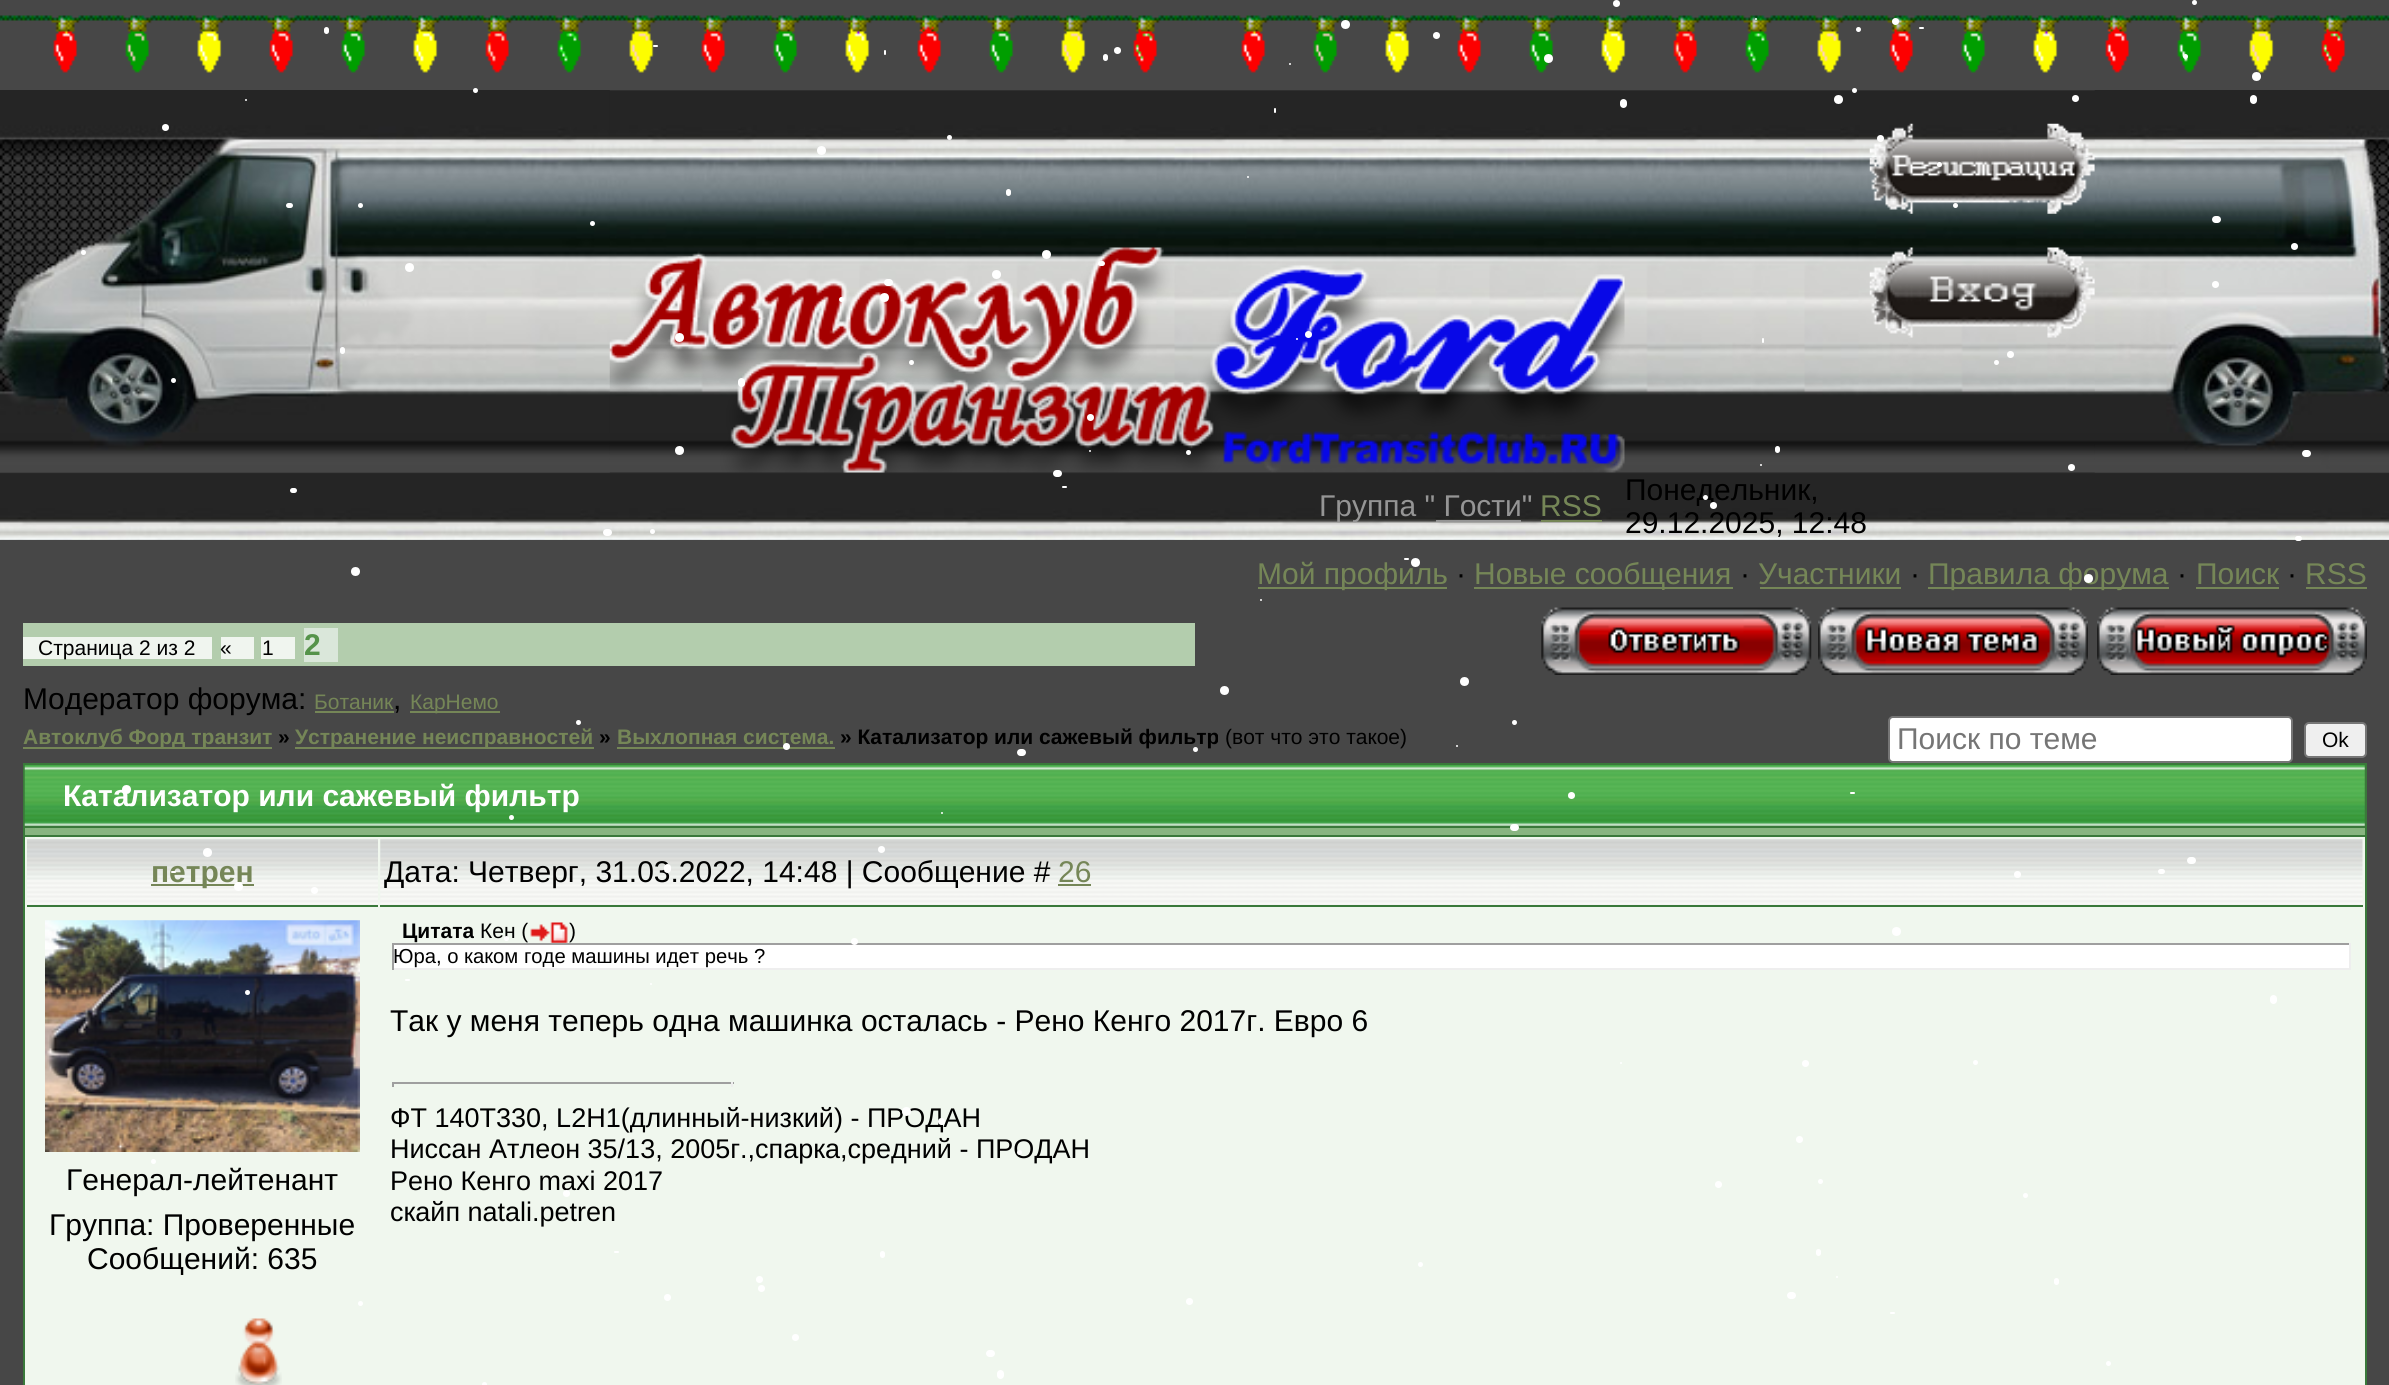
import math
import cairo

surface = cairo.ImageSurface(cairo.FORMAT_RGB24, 2389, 1385)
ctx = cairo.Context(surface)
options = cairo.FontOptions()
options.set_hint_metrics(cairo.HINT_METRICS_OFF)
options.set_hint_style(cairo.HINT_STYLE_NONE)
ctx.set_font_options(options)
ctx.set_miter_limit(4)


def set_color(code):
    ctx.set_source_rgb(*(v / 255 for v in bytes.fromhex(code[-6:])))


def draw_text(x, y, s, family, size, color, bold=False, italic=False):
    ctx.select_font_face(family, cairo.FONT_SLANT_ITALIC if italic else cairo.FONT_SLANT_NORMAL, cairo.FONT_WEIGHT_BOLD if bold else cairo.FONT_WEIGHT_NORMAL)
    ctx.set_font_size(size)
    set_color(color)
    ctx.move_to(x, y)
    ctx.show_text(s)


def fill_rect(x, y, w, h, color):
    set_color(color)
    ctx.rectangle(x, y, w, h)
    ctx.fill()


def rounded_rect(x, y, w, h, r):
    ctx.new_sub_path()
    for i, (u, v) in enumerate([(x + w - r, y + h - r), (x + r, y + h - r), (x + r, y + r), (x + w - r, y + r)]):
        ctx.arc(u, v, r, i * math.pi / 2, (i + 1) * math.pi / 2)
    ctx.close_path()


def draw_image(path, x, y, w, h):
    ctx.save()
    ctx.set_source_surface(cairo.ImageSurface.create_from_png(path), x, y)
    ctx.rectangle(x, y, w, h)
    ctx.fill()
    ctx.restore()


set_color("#474747")
ctx.paint()
set_color("#ffffff")
ctx.arc(1616.5, 3.5, 3.5, 0, 2 * math.pi)
ctx.fill()
ctx.arc(2194.5, 2.5, 2.5, 0, 2 * math.pi)
ctx.fill()
draw_image("assets/img1.png", 0, 15, 2389, 58)
ctx.arc(1345.5, 24.5, 4.5, 0, 2 * math.pi)
ctx.fill()
ctx.arc(1756, 19, 1, 0, 2 * math.pi)
ctx.fill()
ctx.arc(1895.5, 21.5, 3.5, 0, 2 * math.pi)
ctx.fill()
rounded_rect(324, 27, 5, 7, 2.5)
ctx.fill()
ctx.arc(1858.5, 29.5, 2.5, 0, 2 * math.pi)
ctx.fill()
rounded_rect(1919, 27, 5, 2, 1)
ctx.fill()
ctx.arc(1436.5, 35.5, 3.5, 0, 2 * math.pi)
ctx.fill()
rounded_rect(653, 45, 5, 2, 1)
ctx.fill()
rounded_rect(884, 50, 2, 5, 1)
ctx.fill()
ctx.arc(1117.5, 50.5, 3.5, 0, 2 * math.pi)
ctx.fill()
rounded_rect(1103, 54, 5, 7, 2.5)
ctx.fill()
ctx.arc(1548.5, 58.5, 4.5, 0, 2 * math.pi)
ctx.fill()
ctx.arc(2185.5, 56.5, 2.5, 0, 2 * math.pi)
ctx.fill()
ctx.arc(1290, 64, 1, 0, 2 * math.pi)
ctx.fill()
ctx.arc(2256.5, 76.5, 4.5, 0, 2 * math.pi)
ctx.fill()
draw_image("assets/img2.png", 0, 90, 2389, 450)
draw_image("assets/img3.png", 0, 90, 610, 383)
ctx.arc(475.5, 90.5, 2.5, 0, 2 * math.pi)
ctx.fill()
ctx.arc(1854.5, 90.5, 2.5, 0, 2 * math.pi)
ctx.fill()
ctx.arc(246, 100, 1, 0, 2 * math.pi)
ctx.fill()
rounded_rect(1620, 99, 7, 9, 3.5)
ctx.fill()
ctx.arc(1838.5, 99.5, 4.5, 0, 2 * math.pi)
ctx.fill()
ctx.arc(2075.5, 98.5, 3.5, 0, 2 * math.pi)
ctx.fill()
draw_image("assets/img5.png", 1869, 123, 226, 91)
draw_image("assets/img6.png", 1869, 247, 226, 91)
draw_image("assets/img7.png", 2094, 90, 295, 383)
rounded_rect(2250, 95, 7, 9, 3.5)
ctx.fill()
rounded_rect(1274, 108, 2, 5, 1)
ctx.fill()
ctx.arc(165.5, 127.5, 3.5, 0, 2 * math.pi)
ctx.fill()
ctx.arc(949.5, 137.5, 2.5, 0, 2 * math.pi)
ctx.fill()
ctx.arc(1880.5, 138.5, 3.5, 0, 2 * math.pi)
ctx.fill()
ctx.arc(821.5, 150.5, 4.5, 0, 2 * math.pi)
ctx.fill()
ctx.arc(1939.5, 164.5, 2.5, 0, 2 * math.pi)
ctx.fill()
ctx.arc(1248, 177, 1, 0, 2 * math.pi)
ctx.fill()
rounded_rect(1006, 189, 5, 7, 2.5)
ctx.fill()
rounded_rect(286, 203, 7, 5, 2.5)
ctx.fill()
ctx.arc(360.5, 205.5, 2.5, 0, 2 * math.pi)
ctx.fill()
ctx.arc(1955.5, 205.5, 2.5, 0, 2 * math.pi)
ctx.fill()
rounded_rect(2212, 216, 9, 7, 3.5)
ctx.fill()
ctx.arc(592.5, 223.5, 2.5, 0, 2 * math.pi)
ctx.fill()
ctx.arc(2294.5, 246.5, 3.5, 0, 2 * math.pi)
ctx.fill()
ctx.arc(83.5, 252.5, 2.5, 0, 2 * math.pi)
ctx.fill()
draw_image("assets/img4.png", 609, 247, 1016, 226)
ctx.arc(1046.5, 254.5, 4.5, 0, 2 * math.pi)
ctx.fill()
ctx.arc(409.5, 267.5, 4.5, 0, 2 * math.pi)
ctx.fill()
rounded_rect(1098, 261, 7, 5, 2.5)
ctx.fill()
ctx.arc(996.5, 274.5, 4.5, 0, 2 * math.pi)
ctx.fill()
rounded_rect(884, 279, 9, 7, 3.5)
ctx.fill()
ctx.arc(2215.5, 284.5, 3.5, 0, 2 * math.pi)
ctx.fill()
ctx.arc(841.5, 299.5, 2.5, 0, 2 * math.pi)
ctx.fill()
ctx.arc(884.5, 297.5, 4.5, 0, 2 * math.pi)
ctx.fill()
ctx.arc(679.5, 337.5, 4.5, 0, 2 * math.pi)
ctx.fill()
ctx.arc(1297, 339, 1, 0, 2 * math.pi)
ctx.fill()
ctx.arc(1308.5, 334.5, 3.5, 0, 2 * math.pi)
ctx.fill()
rounded_rect(1762, 338, 2, 5, 1)
ctx.fill()
rounded_rect(340, 347, 5, 7, 2.5)
ctx.fill()
ctx.arc(2010.5, 354.5, 3.5, 0, 2 * math.pi)
ctx.fill()
ctx.arc(911.5, 362.5, 2.5, 0, 2 * math.pi)
ctx.fill()
ctx.arc(1996.5, 362.5, 2.5, 0, 2 * math.pi)
ctx.fill()
ctx.arc(173.5, 380.5, 2.5, 0, 2 * math.pi)
ctx.fill()
rounded_rect(738, 378, 7, 9, 3.5)
ctx.fill()
ctx.arc(1090.5, 417.5, 3.5, 0, 2 * math.pi)
ctx.fill()
ctx.arc(1014, 440, 1, 0, 2 * math.pi)
ctx.fill()
ctx.arc(679.5, 450.5, 4.5, 0, 2 * math.pi)
ctx.fill()
ctx.arc(1090, 451, 1, 0, 2 * math.pi)
ctx.fill()
ctx.arc(1188.5, 452.5, 2.5, 0, 2 * math.pi)
ctx.fill()
rounded_rect(1775, 446, 5, 7, 2.5)
ctx.fill()
rounded_rect(2302, 450, 9, 7, 3.5)
ctx.fill()
ctx.arc(1761, 465, 1, 0, 2 * math.pi)
ctx.fill()
ctx.arc(2071.5, 467.5, 3.5, 0, 2 * math.pi)
ctx.fill()
rounded_rect(1053, 470, 9, 7, 3.5)
ctx.fill()
draw_text(1319, 516, "Группа \" Гости\"", "Liberation Sans", 30, "#959595")
draw_text(1540, 516, "RSS", "Liberation Sans", 30, "#758657")
fill_rect(1541, 520, 61, 2, "#758657")
fill_rect(1436, 520, 85, 2, "#959595")
draw_text(1625, 500, "Понедельник,", "Liberation Sans", 30, "#000000")
draw_text(1625, 533, "29.12.2025, 12:48", "Liberation Sans", 30, "#000000")
fill_rect(1258, 587, 189, 2, "#758657")
draw_text(1257, 584, "Мой профиль", "Liberation Sans", 30, "#758657")
draw_text(1456, 584, "·", "Liberation Sans", 30, "#000000")
fill_rect(1474, 587, 259, 2, "#758657")
draw_text(1474, 584, "Новые сообщения", "Liberation Sans", 30, "#758657")
draw_text(1740, 584, "·", "Liberation Sans", 30, "#000000")
draw_text(1758, 584, "Участники", "Liberation Sans", 30, "#758657")
fill_rect(1760, 587, 141, 2, "#758657")
draw_text(1910, 584, "·", "Liberation Sans", 30, "#000000")
fill_rect(1928, 587, 241, 2, "#758657")
draw_text(1928, 584, "Правила форума", "Liberation Sans", 30, "#758657")
draw_text(2177, 584, "·", "Liberation Sans", 30, "#000000")
draw_text(2196, 584, "Поиск", "Liberation Sans", 30, "#758657")
fill_rect(2196, 587, 83, 2, "#758657")
draw_text(2287, 584, "·", "Liberation Sans", 30, "#000000")
draw_text(2305, 584, "RSS", "Liberation Sans", 30, "#758657")
fill_rect(2306, 587, 61, 2, "#758657")
fill_rect(23, 623, 1172, 43, "#b3cdad")
fill_rect(23, 637, 189, 22, "#f0f5ef")
draw_text(38, 655, "Страница 2 из 2", "Liberation Sans", 21, "#000000")
fill_rect(221, 637, 33, 22, "#f0f5ef")
draw_text(220, 655, "«", "Liberation Sans", 21, "#000000")
fill_rect(261, 637, 34, 22, "#f0f5ef")
draw_text(262, 655, "1", "Liberation Sans", 21, "#000000")
fill_rect(304, 628, 34, 34, "#dae7da")
draw_text(304, 655, "2", "Liberation Sans", 30, "#55934a", bold=True)
draw_image("assets/img8.png", 1541, 607, 271, 68)
draw_image("assets/img9.png", 1818, 607, 270, 68)
draw_image("assets/img10.png", 2097, 607, 270, 68)
draw_text(23, 709, "Модератор форума:", "Liberation Sans", 30, "#000000")
draw_text(314, 709, "Ботаник", "Liberation Sans", 21, "#758657")
draw_text(393, 709, ",", "Liberation Sans", 30, "#000000")
fill_rect(315, 711, 79, 2, "#758657")
fill_rect(410, 711, 90, 2, "#758657")
draw_text(410, 709, "КарНемо", "Liberation Sans", 21, "#758657")
fill_rect(23, 747, 249, 2, "#758657")
draw_text(23, 744, "Автоклуб Форд транзит", "Liberation Sans", 21, "#758657", bold=True)
draw_text(278, 744, "»", "Liberation Sans", 21, "#000000", bold=True)
fill_rect(295, 747, 299, 2, "#758657")
draw_text(295, 744, "Устранение неисправностей", "Liberation Sans", 21, "#758657", bold=True)
draw_text(599, 744, "»", "Liberation Sans", 21, "#000000", bold=True)
draw_text(617, 744, "Выхлопная система.", "Liberation Sans", 21, "#758657", bold=True)
fill_rect(617, 747, 218, 2, "#758657")
draw_text(840, 744, "» Катализатор или сажевый фильтр", "Liberation Sans", 21, "#000000", bold=True)
draw_text(1225, 744, "(вот что это такое)", "Liberation Sans", 21, "#000000")
set_color("#ffffff")
rounded_rect(1889, 717, 403, 45, 4)
ctx.fill_preserve()
set_color("#767676")
ctx.stroke()
draw_text(1897, 749, "Поиск по теме", "Liberation Sans", 30, "#757575")
set_color("#efefef")
rounded_rect(2305, 723, 61, 34, 4)
ctx.fill_preserve()
set_color("#767676")
ctx.stroke()
draw_text(2322, 747, "Ok", "Liberation Sans", 21, "#000000")
fill_rect(23, 763, 2344, 622, "#3a793a")
draw_image("assets/img11.png", 24, 765, 2341, 61)
draw_text(63, 806, "Катализатор или сажевый фильтр", "Liberation Sans", 30, "#ffffff", bold=True)
fill_rect(25, 828, 2340, 7, "#88b580")
fill_rect(25, 837, 2340, 548, "#f0f7ee")
draw_image("assets/img12.png", 27, 839, 351, 66)
fill_rect(27, 905, 351, 2, "#3a793a")
fill_rect(151, 884, 103, 2, "#758657")
draw_text(151, 882, "петрен", "Liberation Sans", 30, "#758657", bold=True)
draw_image("assets/img13.png", 380, 839, 1983, 66)
fill_rect(380, 905, 1983, 2, "#3a793a")
draw_text(384, 882, "Дата: Четверг, 31.03.2022, 14:48 | Сообщение #", "Liberation Sans", 30, "#000000")
draw_text(1058, 882, "26", "Liberation Sans", 30, "#758657")
fill_rect(1058, 884, 33, 2, "#758657")
draw_image("assets/img14.png", 45, 920, 315, 232)
draw_text(66, 1190, "Генерал-лейтенант", "Liberation Sans", 30, "#000000")
draw_text(49, 1235, "Группа: Проверенные", "Liberation Sans", 30, "#000000")
draw_text(87, 1269, "Сообщений: 635", "Liberation Sans", 30, "#000000")
draw_image("assets/img15.png", 235, 1318, 47, 67)
draw_text(402, 938, "Цитата", "Liberation Sans", 21, "#000000", bold=True)
draw_text(480, 938, "Кен (", "Liberation Sans", 21, "#000000")
draw_image("assets/img16.png", 530, 922, 38, 21)
draw_text(569, 938, ")", "Liberation Sans", 21, "#000000")
fill_rect(394, 945, 1955, 23, "#ffffff")
fill_rect(392, 943, 1959, 2, "#9f9f9f")
fill_rect(2349, 943, 2, 27, "#eeeeee")
fill_rect(392, 968, 1959, 2, "#eeeeee")
fill_rect(392, 943, 2, 27, "#9f9f9f")
draw_text(393, 963, "Юра, о каком годе машины идет речь ?", "Liberation Sans", 20.25, "#000000")
draw_text(390, 1031, "Так у меня теперь одна машинка осталась - Рено Кенго 2017г. Евро 6", "Liberation Sans", 30, "#000000")
fill_rect(392, 1082, 342, 2, "#9f9f9f")
fill_rect(731, 1082, 2, 5, "#eeeeee")
fill_rect(392, 1082, 2, 5, "#9f9f9f")
draw_text(390, 1127, "ФТ 140Т330, L2H1(длинный-низкий) - ПРОДАН", "Liberation Sans", 27, "#000000")
draw_text(390, 1158, "Ниссан Атлеон 35/13, 2005г.,спарка,средний - ПРОДАН", "Liberation Sans", 27, "#000000")
draw_text(390, 1190, "Рено Кенго maxi 2017", "Liberation Sans", 27, "#000000")
draw_text(390, 1221, "cкайп natali.petren", "Liberation Sans", 27, "#000000")
set_color("#ffffff")
rounded_rect(1062, 486, 5, 2, 1)
ctx.fill()
rounded_rect(290, 488, 7, 5, 2.5)
ctx.fill()
ctx.arc(1705.5, 497.5, 2.5, 0, 2 * math.pi)
ctx.fill()
ctx.arc(1713.5, 505.5, 3.5, 0, 2 * math.pi)
ctx.fill()
rounded_rect(603, 529, 9, 7, 3.5)
ctx.fill()
ctx.arc(652.5, 531.5, 2.5, 0, 2 * math.pi)
ctx.fill()
rounded_rect(2295, 536, 7, 5, 2.5)
ctx.fill()
rounded_rect(1404, 558, 5, 2, 1)
ctx.fill()
ctx.arc(1415.5, 562.5, 4.5, 0, 2 * math.pi)
ctx.fill()
ctx.arc(355.5, 571.5, 4.5, 0, 2 * math.pi)
ctx.fill()
ctx.arc(2088.5, 578.5, 4.5, 0, 2 * math.pi)
ctx.fill()
ctx.arc(1261, 600, 1, 0, 2 * math.pi)
ctx.fill()
ctx.arc(1464.5, 681.5, 4.5, 0, 2 * math.pi)
ctx.fill()
ctx.arc(1224.5, 690.5, 4.5, 0, 2 * math.pi)
ctx.fill()
ctx.arc(578.5, 722.5, 2.5, 0, 2 * math.pi)
ctx.fill()
ctx.arc(1514.5, 722.5, 2.5, 0, 2 * math.pi)
ctx.fill()
ctx.arc(786.5, 746.5, 3.5, 0, 2 * math.pi)
ctx.fill()
ctx.arc(1457, 746, 1, 0, 2 * math.pi)
ctx.fill()
rounded_rect(1017, 749, 9, 7, 3.5)
ctx.fill()
ctx.arc(1195.5, 749.5, 2.5, 0, 2 * math.pi)
ctx.fill()
ctx.arc(126.5, 789.5, 4.5, 0, 2 * math.pi)
ctx.fill()
ctx.arc(1571.5, 795.5, 3.5, 0, 2 * math.pi)
ctx.fill()
rounded_rect(1850, 792, 5, 2, 1)
ctx.fill()
ctx.arc(942, 813, 1, 0, 2 * math.pi)
ctx.fill()
ctx.arc(511.5, 817.5, 2.5, 0, 2 * math.pi)
ctx.fill()
rounded_rect(1510, 824, 9, 7, 3.5)
ctx.fill()
ctx.arc(207.5, 852.5, 4.5, 0, 2 * math.pi)
ctx.fill()
ctx.arc(881.5, 849.5, 3.5, 0, 2 * math.pi)
ctx.fill()
rounded_rect(2187, 857, 9, 7, 3.5)
ctx.fill()
rounded_rect(171, 871, 5, 2, 1)
ctx.fill()
rounded_rect(664, 864, 7, 9, 3.5)
ctx.fill()
ctx.arc(2017.5, 874.5, 3.5, 0, 2 * math.pi)
ctx.fill()
rounded_rect(2158, 869, 7, 5, 2.5)
ctx.fill()
ctx.arc(238.5, 886.5, 4.5, 0, 2 * math.pi)
ctx.fill()
ctx.arc(314.5, 890.5, 3.5, 0, 2 * math.pi)
ctx.fill()
ctx.arc(1896.5, 931.5, 4.5, 0, 2 * math.pi)
ctx.fill()
ctx.arc(506.5, 938.5, 2.5, 0, 2 * math.pi)
ctx.fill()
ctx.arc(854.5, 941.5, 3.5, 0, 2 * math.pi)
ctx.fill()
rounded_rect(405, 979, 5, 2, 1)
ctx.fill()
ctx.arc(651, 984, 1, 0, 2 * math.pi)
ctx.fill()
ctx.arc(247.5, 992.5, 2.5, 0, 2 * math.pi)
ctx.fill()
rounded_rect(2270, 995, 7, 9, 3.5)
ctx.fill()
ctx.arc(1621, 1063, 1, 0, 2 * math.pi)
ctx.fill()
ctx.arc(1805.5, 1063.5, 3.5, 0, 2 * math.pi)
ctx.fill()
ctx.arc(1975.5, 1062.5, 2.5, 0, 2 * math.pi)
ctx.fill()
ctx.arc(906.5, 1111.5, 4.5, 0, 2 * math.pi)
ctx.fill()
ctx.arc(941.5, 1121.5, 3.5, 0, 2 * math.pi)
ctx.fill()
ctx.arc(1799.5, 1139.5, 3.5, 0, 2 * math.pi)
ctx.fill()
ctx.arc(1019.5, 1152.5, 2.5, 0, 2 * math.pi)
ctx.fill()
ctx.arc(153.5, 1161.5, 2.5, 0, 2 * math.pi)
ctx.fill()
ctx.arc(1718.5, 1184.5, 3.5, 0, 2 * math.pi)
ctx.fill()
ctx.arc(1820.5, 1181.5, 2.5, 0, 2 * math.pi)
ctx.fill()
ctx.arc(566.5, 1193.5, 3.5, 0, 2 * math.pi)
ctx.fill()
ctx.arc(2025.5, 1195.5, 2.5, 0, 2 * math.pi)
ctx.fill()
rounded_rect(614, 1251, 5, 2, 1)
ctx.fill()
rounded_rect(880, 1251, 5, 7, 2.5)
ctx.fill()
rounded_rect(1816, 1249, 5, 7, 2.5)
ctx.fill()
ctx.arc(1420.5, 1264.5, 2.5, 0, 2 * math.pi)
ctx.fill()
ctx.arc(759.5, 1279.5, 3.5, 0, 2 * math.pi)
ctx.fill()
ctx.arc(1837, 1277, 1, 0, 2 * math.pi)
ctx.fill()
rounded_rect(2054, 1278, 5, 7, 2.5)
ctx.fill()
ctx.arc(761.5, 1288.5, 3.5, 0, 2 * math.pi)
ctx.fill()
ctx.arc(360.5, 1303.5, 2.5, 0, 2 * math.pi)
ctx.fill()
ctx.arc(667.5, 1297.5, 3.5, 0, 2 * math.pi)
ctx.fill()
ctx.arc(1189.5, 1301.5, 3.5, 0, 2 * math.pi)
ctx.fill()
rounded_rect(1787, 1292, 9, 7, 3.5)
ctx.fill()
rounded_rect(1890, 1312, 5, 2, 1)
ctx.fill()
ctx.arc(795.5, 1337.5, 3.5, 0, 2 * math.pi)
ctx.fill()
rounded_rect(986, 1350, 9, 7, 3.5)
ctx.fill()
ctx.arc(2108.5, 1363.5, 2.5, 0, 2 * math.pi)
ctx.fill()
rounded_rect(997, 1370, 7, 9, 3.5)
ctx.fill()
ctx.arc(484.5, 1384.5, 2.5, 0, 2 * math.pi)
ctx.fill()
surface.write_to_png("output.png")
